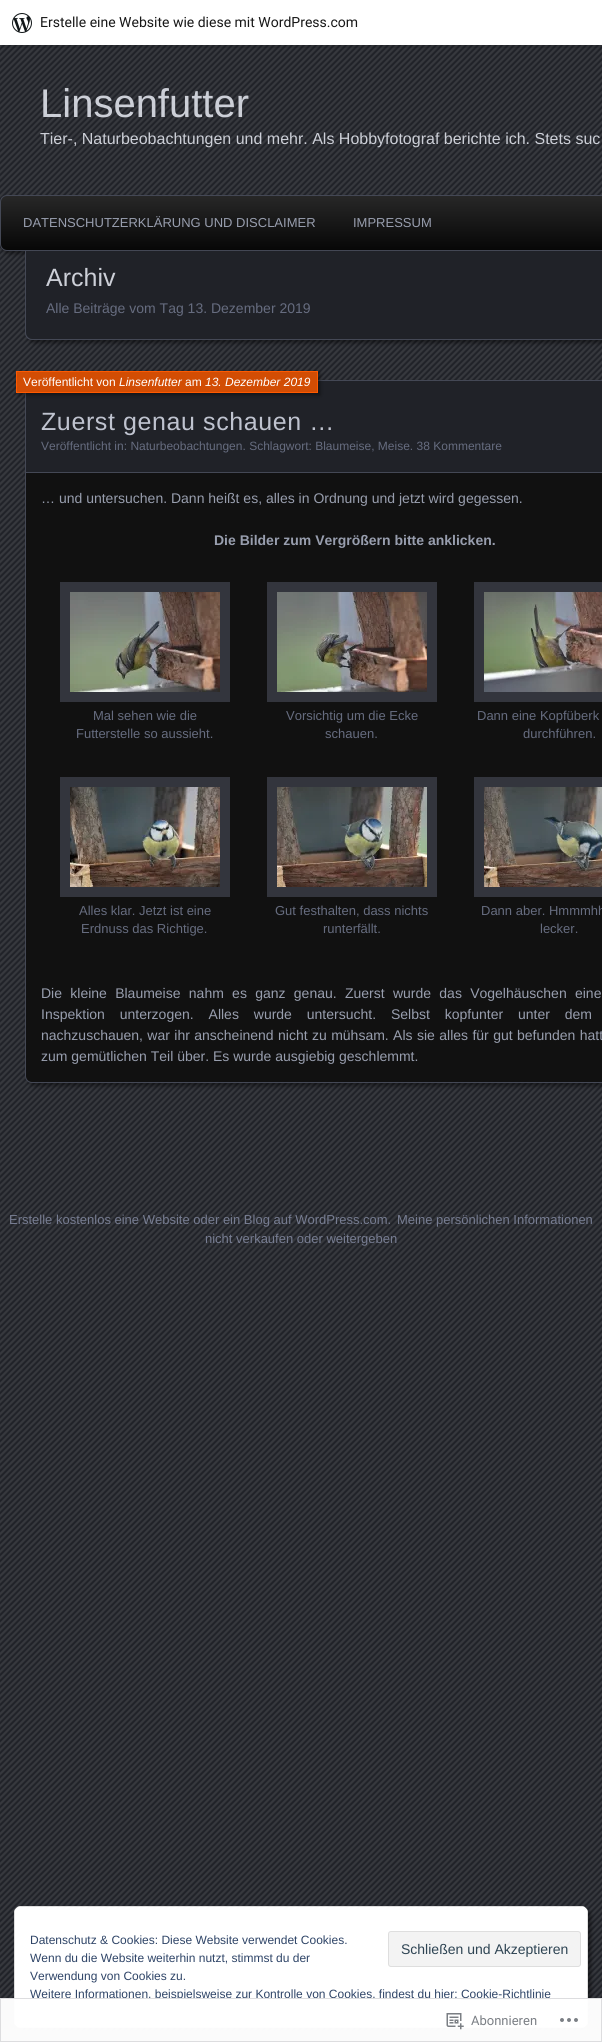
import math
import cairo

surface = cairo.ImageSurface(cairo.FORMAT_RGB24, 602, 2042)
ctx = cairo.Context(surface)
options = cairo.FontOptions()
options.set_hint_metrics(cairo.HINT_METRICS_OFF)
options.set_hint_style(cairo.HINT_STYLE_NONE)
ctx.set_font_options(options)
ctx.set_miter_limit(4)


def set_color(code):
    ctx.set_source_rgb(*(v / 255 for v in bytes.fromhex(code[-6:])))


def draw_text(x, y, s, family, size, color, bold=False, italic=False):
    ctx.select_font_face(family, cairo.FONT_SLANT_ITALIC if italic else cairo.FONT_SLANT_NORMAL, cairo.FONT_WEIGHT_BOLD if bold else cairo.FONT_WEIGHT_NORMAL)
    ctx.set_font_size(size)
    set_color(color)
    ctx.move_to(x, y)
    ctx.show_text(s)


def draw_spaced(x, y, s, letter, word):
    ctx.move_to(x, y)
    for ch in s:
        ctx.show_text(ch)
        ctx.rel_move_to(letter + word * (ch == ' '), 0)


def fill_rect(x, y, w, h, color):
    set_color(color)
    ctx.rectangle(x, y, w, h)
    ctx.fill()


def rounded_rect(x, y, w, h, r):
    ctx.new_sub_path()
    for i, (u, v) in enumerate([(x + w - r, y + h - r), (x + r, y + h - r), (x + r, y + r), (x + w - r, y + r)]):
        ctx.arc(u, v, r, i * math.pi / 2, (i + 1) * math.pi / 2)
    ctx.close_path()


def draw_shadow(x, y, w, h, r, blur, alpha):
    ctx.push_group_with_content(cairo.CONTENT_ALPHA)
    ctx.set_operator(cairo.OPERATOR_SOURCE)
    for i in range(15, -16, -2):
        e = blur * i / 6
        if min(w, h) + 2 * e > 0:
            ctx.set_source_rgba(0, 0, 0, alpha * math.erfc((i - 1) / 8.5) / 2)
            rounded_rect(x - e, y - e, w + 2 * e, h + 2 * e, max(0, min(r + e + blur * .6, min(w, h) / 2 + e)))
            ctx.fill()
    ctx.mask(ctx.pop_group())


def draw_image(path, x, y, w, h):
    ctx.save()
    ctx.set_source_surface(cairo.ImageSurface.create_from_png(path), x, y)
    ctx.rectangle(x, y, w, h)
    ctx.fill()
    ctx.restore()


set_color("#202228")
ctx.paint()
draw_image("assets/img1.png", 0, 45, 602, 1997)
ctx.set_source_rgba(0, 0, 0, 0.08)
ctx.new_path()
ctx.move_to(1, 45)
ctx.line_to(1, 48)
ctx.line_to(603, 48)
ctx.line_to(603, 3)
ctx.line_to(602, 3)
ctx.line_to(602, 45)
ctx.close_path()
ctx.fill()
fill_rect(0, 0, 602, 45, "#ffffff")
draw_image("assets/img2.png", 12, 13, 20, 20)
draw_text(40, 27, "Erstelle eine Website wie diese mit WordPress.com", "Roboto", 14, "#171717")
draw_text(40, 117, "Linsenfutter", "Liberation Sans", 40, "#cccfd7")
draw_text(40, 144, "Tier-, Naturbeobachtungen und mehr. Als Hobbyfotograf berichte ich. Stets suc", "Liberation Sans", 16, "#cccfd7")
set_color("#000000")
draw_shadow(3, 198, 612, 56, 7, 2, 0.45)
ctx.save()
rounded_rect(0, 195, 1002, 56, 7)
ctx.clip()
gradient = cairo.LinearGradient(501, 196, 501, 250)
gradient.add_color_stop_rgba(0.01, 0.153, 0.153, 0.153, 1)
gradient.add_color_stop_rgba(1, 0.027, 0.027, 0.027, 1)
ctx.set_source(gradient)
ctx.rectangle(0, 196, 602, 54)
ctx.fill()
ctx.restore()
rounded_rect(0.5, 195.5, 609, 55, 6.5)
set_color("#444855")
ctx.set_line_width(1)
ctx.stroke()
draw_text(23, 227, "DATENSCHUTZERKLÄRUNG UND DISCLAIMER", "Liberation Sans", 13, "#989eae")
draw_text(353, 227, "IMPRESSUM", "Liberation Sans", 13, "#989eae")
set_color("#000000")
draw_shadow(28, 254, 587, 89, 7, 2, 0.45)
set_color("#202228")
ctx.new_path()
ctx.move_to(26, 251)
ctx.line_to(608, 251)
ctx.line_to(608, 333)
ctx.curve_to(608, 336.5, 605.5, 339, 602, 339)
ctx.line_to(32, 339)
ctx.curve_to(28.5, 339, 26, 336.5, 26, 333)
ctx.close_path()
ctx.fill()
set_color("#444855")
ctx.set_fill_rule(cairo.FILL_RULE_EVEN_ODD)
ctx.new_path()
ctx.move_to(25, 251)
ctx.line_to(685, 251)
ctx.line_to(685, 333)
ctx.curve_to(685, 337, 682, 340, 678, 340)
ctx.line_to(32, 340)
ctx.curve_to(28, 340, 25, 337, 25, 333)
ctx.close_path()
ctx.move_to(26, 251)
ctx.line_to(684, 251)
ctx.line_to(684, 333)
ctx.curve_to(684, 336, 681, 339, 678, 339)
ctx.line_to(32, 339)
ctx.curve_to(29, 339, 26, 336, 26, 333)
ctx.close_path()
ctx.fill()
draw_text(46, 286, "Archiv", "Liberation Sans", 25, "#cccfd7")
draw_text(46, 313, "Alle Beiträge vom Tag 13. Dezember 2019", "Liberation Sans", 14, "#666c7f")
set_color("#000000")
draw_shadow(28, 383, 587, 703, 7, 2, 0.45)
set_color("#111111")
rounded_rect(25.5, 380.5, 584, 702, 6.5)
ctx.fill_preserve()
set_color("#444855")
ctx.stroke()
fill_rect(26, 381, 576, 91, "#202228")
fill_rect(26, 472, 576, 1, "#444855")
set_color("#000000")
draw_shadow(18, 373, 302, 22, 0, 2, 0.45)
set_color("#d24d04")
ctx.rectangle(16.5, 371.5, 301, 21)
ctx.fill_preserve()
set_color("#ff5a00")
ctx.stroke()
draw_text(23, 386, "Veröffentlicht von", "Liberation Sans", 12, "#ffffff")
draw_text(119, 386, "Linsenfutter", "Liberation Sans", 12, "#ffffff", italic=True)
draw_text(185, 386, "am", "Liberation Sans", 12, "#ffffff")
draw_text(205, 386, "13. Dezember 2019", "Liberation Sans", 12, "#ffffff", italic=True)
ctx.select_font_face("Liberation Sans")
ctx.set_font_size(25)
set_color("#bfc3cf")
draw_spaced(41, 430, "Zuerst genau schauen …", 0.6, 0)
draw_text(41, 450, "Veröffentlicht in: Naturbeobachtungen. Schlagwort: Blaumeise, Meise. 38 Kommentare", "Liberation Sans", 12, "#666c7f")
draw_text(41, 503, "… und untersuchen. Dann heißt es, alles in Ordnung und jetzt wird gegessen.", "Liberation Sans", 14, "#989eae")
draw_text(214, 545, "Die Bilder zum Vergrößern bitte anklicken.", "Liberation Sans", 14, "#989eae", bold=True)
ctx.rectangle(65, 587, 160, 110)
set_color("#33353d")
ctx.set_line_width(10)
ctx.stroke()
draw_image("assets/img3.png", 70, 592, 150, 100)
draw_text(93, 720, "Mal sehen wie die", "Liberation Sans", 13, "#666c7f")
draw_text(76, 738, "Futterstelle so aussieht.", "Liberation Sans", 13, "#666c7f")
ctx.rectangle(272, 587, 160, 110)
set_color("#33353d")
ctx.stroke()
draw_image("assets/img4.png", 277, 592, 150, 100)
draw_text(286, 720, "Vorsichtig um die Ecke", "Liberation Sans", 13, "#666c7f")
draw_text(325, 738, "schauen.", "Liberation Sans", 13, "#666c7f")
ctx.rectangle(479, 587, 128, 110)
set_color("#33353d")
ctx.stroke()
draw_image("assets/img5.png", 484, 592, 118, 100)
draw_text(477, 720, "Dann eine Kopfüberk", "Liberation Sans", 13, "#666c7f")
draw_text(523, 738, "durchführen.", "Liberation Sans", 13, "#666c7f")
ctx.rectangle(65, 782, 160, 110)
set_color("#33353d")
ctx.stroke()
draw_image("assets/img6.png", 70, 787, 150, 100)
draw_text(79, 915, "Alles klar. Jetzt ist eine", "Liberation Sans", 13, "#666c7f")
draw_text(81, 933, "Erdnuss das Richtige.", "Liberation Sans", 13, "#666c7f")
ctx.rectangle(272, 782, 160, 110)
set_color("#33353d")
ctx.stroke()
draw_image("assets/img7.png", 277, 787, 150, 100)
draw_text(275, 915, "Gut festhalten, dass nichts", "Liberation Sans", 13, "#666c7f")
draw_text(323, 933, "runterfällt.", "Liberation Sans", 13, "#666c7f")
ctx.rectangle(479, 782, 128, 110)
set_color("#33353d")
ctx.stroke()
draw_image("assets/img8.png", 484, 787, 118, 100)
draw_text(481, 915, "Dann aber. Hmmmhh", "Liberation Sans", 13, "#666c7f")
draw_text(540, 933, "lecker.", "Liberation Sans", 13, "#666c7f")
ctx.set_font_size(14)
set_color("#989eae")
draw_spaced(41, 998, "Die kleine Blaumeise nahm es ganz genau. Zuerst wurde das Vogelhäuschen eine", 0, 4.4)
draw_spaced(41, 1019, "Inspektion unterzogen. Alles wurde untersucht. Selbst kopfunter unter dem", 0, 11)
draw_spaced(41, 1040, "nachzuschauen, war ihr anscheinend nicht zu mühsam. Als sie alles für gut befunden hatt", 0, 0.5)
draw_text(41, 1061, "zum gemütlichen Teil über. Es wurde ausgiebig geschlemmt.", "Liberation Sans", 14, "#989eae")
draw_text(9, 1224, "Erstelle kostenlos eine Website oder ein Blog auf WordPress.com.", "Liberation Sans", 13, "#777d92")
draw_text(397, 1224, "Meine persönlichen Informationen", "Liberation Sans", 13, "#777d92")
draw_text(205, 1243, "nicht verkaufen oder weitergeben", "Liberation Sans", 13, "#777d92")
set_color("#000000")
draw_shadow(17, 1909, 574, 122, 7, 2, 0.45)
set_color("#ffffff")
rounded_rect(14, 1906, 574, 122, 7)
ctx.fill()
set_color("#dedede")
ctx.new_path()
ctx.move_to(14, 1913)
ctx.line_to(14, 2021)
ctx.curve_to(14, 2022, 14, 2024, 15, 2025)
ctx.line_to(15, 1909)
ctx.close_path()
ctx.move_to(21, 1906)
ctx.line_to(17, 1907)
ctx.line_to(585, 1907)
ctx.line_to(581, 1906)
ctx.close_path()
ctx.move_to(588, 1913)
ctx.line_to(587, 1909)
ctx.line_to(587, 2025)
ctx.curve_to(588, 2024, 588, 2022, 588, 2021)
ctx.close_path()
ctx.move_to(581, 2028)
ctx.line_to(585, 2027)
ctx.line_to(17, 2027)
ctx.line_to(21, 2028)
ctx.close_path()
ctx.fill()
draw_text(30, 1944, "Datenschutz & Cookies: Diese Website verwendet Cookies.", "Liberation Sans", 12, "#2e4467")
set_color("#f3f3f3")
rounded_rect(388.5, 1931.5, 192, 35, 2.5)
ctx.fill_preserve()
set_color("#dedede")
ctx.set_line_width(1)
ctx.stroke()
draw_text(401, 1954, "Schließen und Akzeptieren", "Liberation Sans", 14, "#2e4453")
draw_text(30, 1962, "Wenn du die Website weiterhin nutzt, stimmst du der", "Liberation Sans", 12, "#2e4467")
draw_text(30, 1980, "Verwendung von Cookies zu.", "Liberation Sans", 12, "#2e4467")
draw_text(30, 1998, "Weitere Informationen, beispielsweise zur Kontrolle von Cookies, findest du hier: Cookie-Richtlinie", "Liberation Sans", 12, "#2e4467")
fill_rect(461, 1999, 90, 1, "#2e4467")
ctx.set_source_rgba(1, 1, 1, 0.98)
ctx.rectangle(0, 1998, 602, 44)
ctx.fill()
ctx.rectangle(0.5, 1998.5, 601, 43)
ctx.set_source_rgba(0.863, 0.863, 0.871, 0.98)
ctx.stroke()
draw_image("assets/img9.png", 446, 2013, 18, 17)
draw_text(471, 2025, "Abonnieren", "Roboto", 13, "#7b7f85")
draw_image("assets/img10.png", 560, 2018, 18, 4)
surface.write_to_png("output.png")
